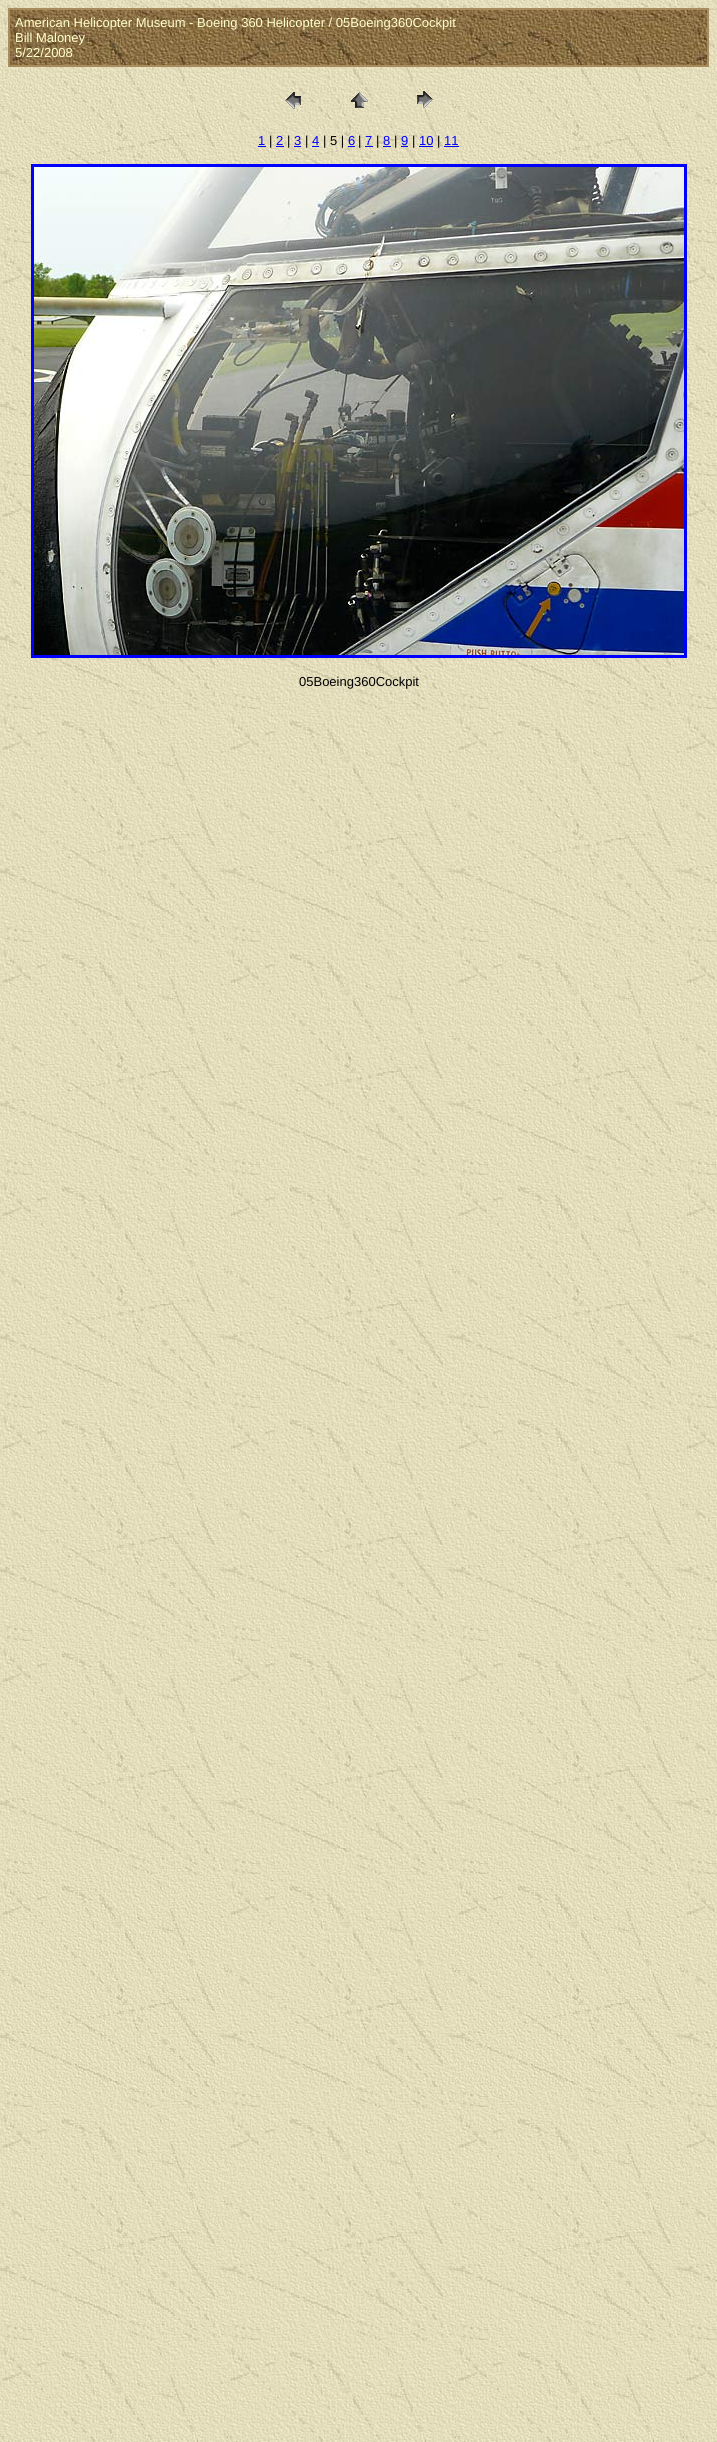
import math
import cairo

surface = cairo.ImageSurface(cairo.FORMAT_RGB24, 717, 2442)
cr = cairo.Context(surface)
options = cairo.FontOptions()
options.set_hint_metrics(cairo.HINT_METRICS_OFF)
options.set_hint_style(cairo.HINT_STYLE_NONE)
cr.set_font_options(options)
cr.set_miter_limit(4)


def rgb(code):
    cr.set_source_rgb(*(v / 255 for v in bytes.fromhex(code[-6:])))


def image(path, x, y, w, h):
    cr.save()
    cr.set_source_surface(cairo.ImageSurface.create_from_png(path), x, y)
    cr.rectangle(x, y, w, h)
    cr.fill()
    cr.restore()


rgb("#ffffff")
cr.paint()
image("img/1.png", 0, 0, 717, 2442)
rgb("#a98c5d")
cr.rectangle(8, 8, 701, 59)
cr.fill()
image("img/2.png", 10, 10, 697, 55)
image("img/3.png", 285, 92, 16, 17)
image("img/4.png", 351, 92, 17, 16)
image("img/5.png", 417, 91, 16, 17)
for x, y, w, h, color in [
    (258, 146, 8, 1, "#0000ff"),
    (276, 146, 8, 1, "#0000ff"),
    (294, 146, 7, 1, "#0000ff"),
    (312, 146, 7, 1, "#0000ff"),
    (348, 146, 7, 1, "#0000ff"),
    (365, 146, 8, 1, "#0000ff"),
    (383, 146, 8, 1, "#0000ff"),
    (401, 146, 7, 1, "#0000ff"),
    (419, 146, 14, 1, "#0000ff"),
    (444, 146, 15, 1, "#0000ff"),
]:
    rgb(color)
    cr.rectangle(x, y, w, h)
    cr.fill()
cr.rectangle(32.5, 165.5, 653, 491)
cr.set_line_width(3)
cr.stroke()
image("img/6.png", 34, 167, 650, 488)
cr.select_font_face("Liberation Sans")
cr.set_font_size(13)
rgb("#ffffcc")
for x, y, s in [
    (15, 27, "American Helicopter Museum - Boeing 360 Helicopter / 05Boeing360Cockpit"),
    (15, 42, "Bill Maloney"),
    (15, 57, "5/22/2008"),
]:
    cr.move_to(x, y)
    cr.show_text(s)
rgb("#0000ff")
cr.move_to(258, 145)
cr.show_text("1")
rgb("#000000")
cr.move_to(269, 145)
cr.show_text("|")
rgb("#0000ff")
cr.move_to(276, 145)
cr.show_text("2")
rgb("#000000")
cr.move_to(287, 145)
cr.show_text("|")
rgb("#0000ff")
cr.move_to(294, 145)
cr.show_text("3")
rgb("#000000")
cr.move_to(305, 145)
cr.show_text("|")
rgb("#0000ff")
cr.move_to(312, 145)
cr.show_text("4")
rgb("#000000")
cr.move_to(323, 145)
cr.show_text("| 5 |")
rgb("#0000ff")
cr.move_to(348, 145)
cr.show_text("6")
rgb("#000000")
cr.move_to(358, 145)
cr.show_text("|")
rgb("#0000ff")
cr.move_to(365, 145)
cr.show_text("7")
rgb("#000000")
cr.move_to(376, 145)
cr.show_text("|")
rgb("#0000ff")
cr.move_to(383, 145)
cr.show_text("8")
rgb("#000000")
cr.move_to(394, 145)
cr.show_text("|")
rgb("#0000ff")
cr.move_to(401, 145)
cr.show_text("9")
rgb("#000000")
cr.move_to(412, 145)
cr.show_text("|")
rgb("#0000ff")
cr.move_to(419, 145)
cr.show_text("10")
rgb("#000000")
cr.move_to(437, 145)
cr.show_text("|")
rgb("#0000ff")
cr.move_to(444, 145)
cr.show_text("11")
rgb("#000000")
cr.move_to(299, 686)
cr.show_text("05Boeing360Cockpit")
surface.write_to_png("page.png")
